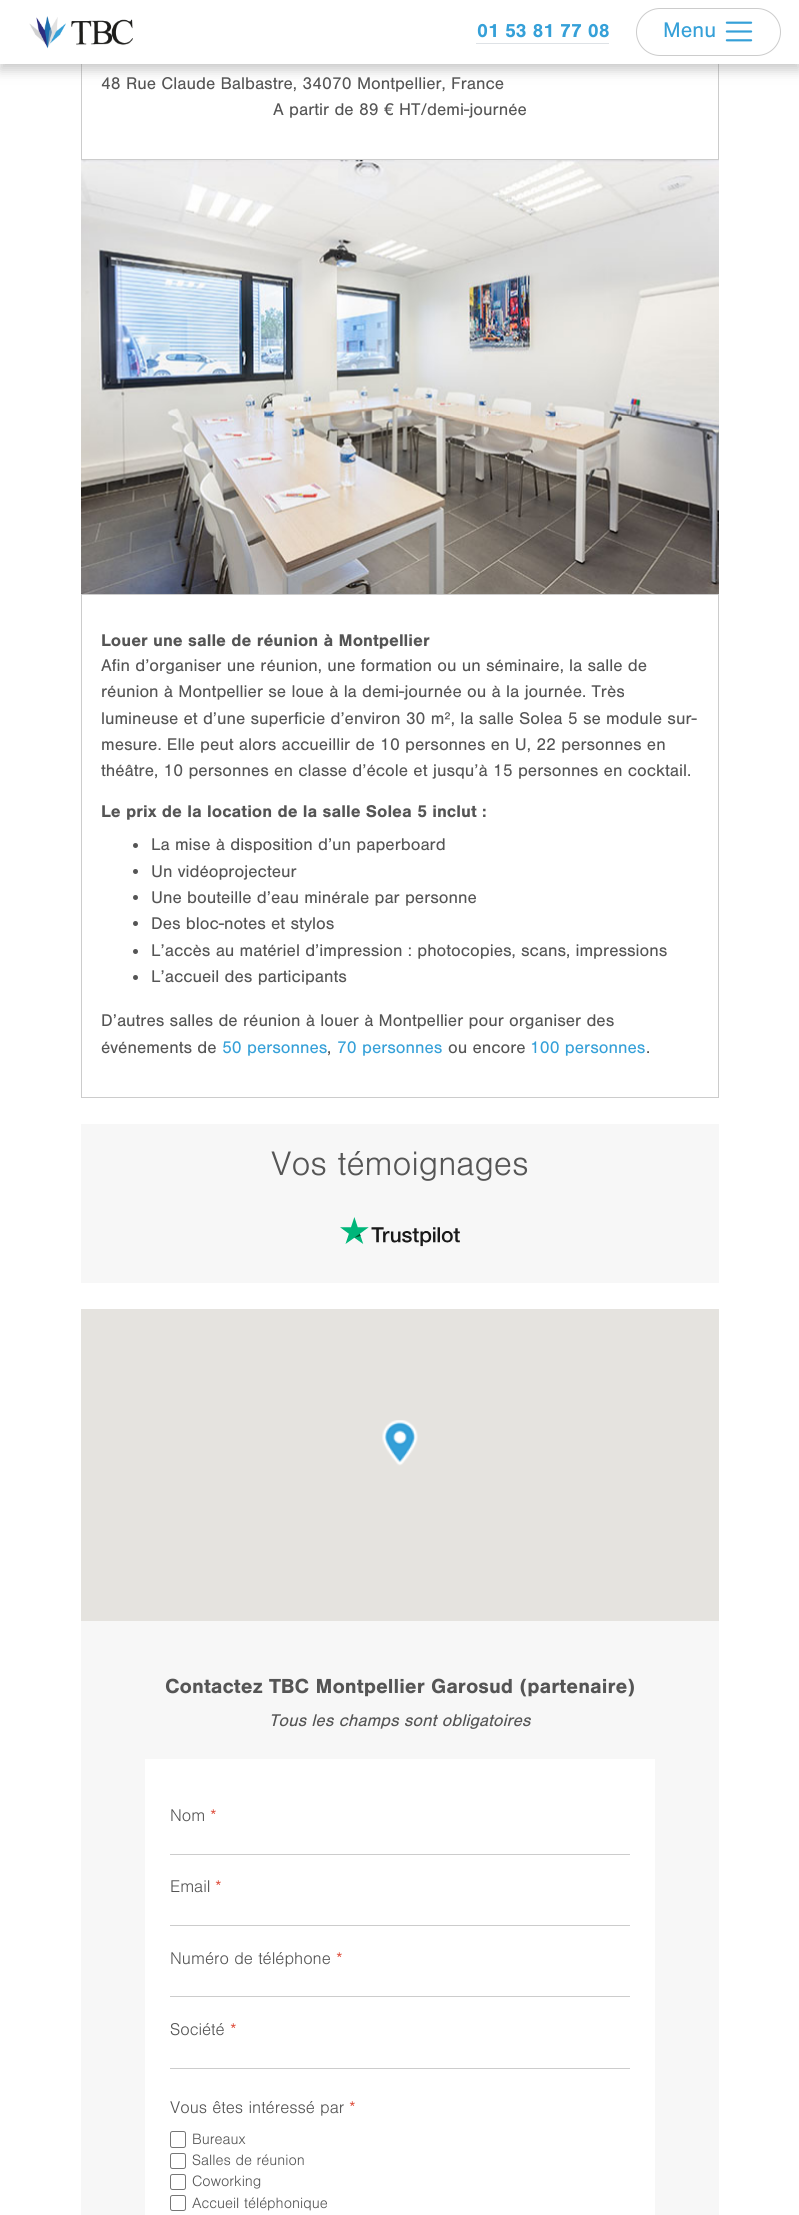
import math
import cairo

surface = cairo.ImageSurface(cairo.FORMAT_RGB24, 799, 2215)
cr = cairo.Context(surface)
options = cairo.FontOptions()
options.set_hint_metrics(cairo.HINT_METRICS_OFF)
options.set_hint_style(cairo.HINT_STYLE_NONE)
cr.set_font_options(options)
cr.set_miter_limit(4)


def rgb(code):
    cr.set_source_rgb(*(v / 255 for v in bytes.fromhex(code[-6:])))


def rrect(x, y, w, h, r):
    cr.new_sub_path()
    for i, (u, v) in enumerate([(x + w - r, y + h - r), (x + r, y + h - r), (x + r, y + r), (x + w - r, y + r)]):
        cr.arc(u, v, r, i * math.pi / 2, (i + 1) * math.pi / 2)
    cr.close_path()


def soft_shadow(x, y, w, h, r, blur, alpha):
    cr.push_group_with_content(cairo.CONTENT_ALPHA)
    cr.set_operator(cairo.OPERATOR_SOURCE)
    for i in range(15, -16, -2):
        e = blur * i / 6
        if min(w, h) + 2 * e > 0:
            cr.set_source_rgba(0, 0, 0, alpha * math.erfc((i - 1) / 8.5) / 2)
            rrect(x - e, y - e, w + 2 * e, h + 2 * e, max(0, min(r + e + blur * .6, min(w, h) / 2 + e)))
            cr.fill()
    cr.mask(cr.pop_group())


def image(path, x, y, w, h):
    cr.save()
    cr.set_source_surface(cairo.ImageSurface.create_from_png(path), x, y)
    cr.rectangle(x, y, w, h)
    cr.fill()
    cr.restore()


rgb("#ffffff")
cr.paint()
cr.rectangle(81.5, -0.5, 637, 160)
rgb("#cccccc")
cr.set_line_width(1)
cr.stroke()
rgb("#7a7a7a")
soft_shadow(0, 6, 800, 64, 0, 6, 0.4)
rgb("#ffffff")
cr.rectangle(0, 0, 799, 64)
cr.fill()
image("img/1.png", 29, 16, 104, 33)
rgb("#dee2e6")
cr.rectangle(476, 43, 133, 1)
cr.fill()
rrect(636.5, 8.5, 144, 47, 23.5)
rgb("#cccccc")
cr.stroke()
image("img/2.png", 725, 21, 28, 21)
image("img/3.png", 81, 160, 638, 434)
cr.rectangle(81.5, 594.5, 637, 503)
cr.stroke()
rgb("#555555")
cr.arc(135.5, 845.5, 2.5, 0, 2 * math.pi)
cr.fill()
cr.arc(135.5, 871.5, 2.5, 0, 2 * math.pi)
cr.fill()
cr.arc(135.5, 897.5, 2.5, 0, 2 * math.pi)
cr.fill()
cr.arc(135.5, 923.5, 2.5, 0, 2 * math.pi)
cr.fill()
cr.arc(135.5, 951.5, 2.5, 0, 2 * math.pi)
cr.fill()
cr.arc(135.5, 977.5, 2.5, 0, 2 * math.pi)
cr.fill()
rgb("#f7f7f7")
cr.rectangle(81, 1124, 638, 159)
cr.fill()
image("img/4.png", 340, 1217, 120, 30)
cr.rectangle(81, 1621, 638, 594)
cr.fill()
rgb("#e5e3df")
cr.rectangle(81, 1309, 638, 312)
cr.fill()
image("img/5.png", 382, 1420, 36, 46)
for x, y, w, h, color in [
    (145, 1759, 510, 456, "#ffffff"),
    (170, 1854, 460, 1, "#cccccc"),
    (170, 1925, 460, 1, "#cccccc"),
    (170, 1996, 460, 1, "#cccccc"),
    (170, 2068, 460, 1, "#cccccc"),
]:
    rgb(color)
    cr.rectangle(x, y, w, h)
    cr.fill()
rrect(170.5, 2131.5, 15, 16, 2)
rgb("#767676")
cr.stroke()
rrect(170.5, 2153.5, 15, 15, 2)
cr.stroke()
rrect(170.5, 2174.5, 15, 15, 2)
cr.stroke()
rrect(170.5, 2195.5, 15, 15, 2)
cr.stroke()
cr.select_font_face("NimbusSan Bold", cairo.FONT_SLANT_NORMAL, cairo.FONT_WEIGHT_BOLD)
cr.set_font_size(19.5)
rgb("#35a0d8")
cr.move_to(477, 37)
cr.show_text("01 53 81 77 08")
cr.select_font_face("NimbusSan")
cr.set_font_size(22)
cr.move_to(663, 37)
cr.show_text("Menu")
cr.set_font_size(17.6)
rgb("#555555")
cr.move_to(101, 89)
cr.show_text("48 Rue Claude Balbastre, 34070 Montpellier, France")
cr.move_to(273, 115)
cr.show_text("A partir de 89 € HT/demi-journée")
cr.select_font_face("NimbusSan Bold", cairo.FONT_SLANT_NORMAL, cairo.FONT_WEIGHT_BOLD)
cr.move_to(101, 646)
cr.show_text("Louer une salle de réunion à Montpellier")
cr.select_font_face("NimbusSan")
for x, y, s in [
    (101, 671, "Afin d’organiser une réunion, une formation ou un séminaire, la salle de"),
    (101, 697, "réunion à Montpellier se loue à la demi-journée ou à la journée. Très"),
    (101, 724, "lumineuse et d’une superficie d’environ 30 m², la salle Solea 5 se module sur-"),
    (101, 750, "mesure. Elle peut alors accueillir de 10 personnes en U, 22 personnes en"),
    (101, 776, "théâtre, 10 personnes en classe d’école et jusqu’à 15 personnes en cocktail."),
]:
    cr.move_to(x, y)
    cr.show_text(s)
cr.select_font_face("NimbusSan Bold", cairo.FONT_SLANT_NORMAL, cairo.FONT_WEIGHT_BOLD)
cr.move_to(101, 817)
cr.show_text("Le prix de la location de la salle Solea 5 inclut :")
cr.select_font_face("NimbusSan")
for x, y, s in [
    (151, 850, "La mise à disposition d’un paperboard"),
    (151, 877, "Un vidéoprojecteur"),
    (151, 903, "Une bouteille d’eau minérale par personne"),
    (151, 929, "Des bloc-notes et stylos"),
    (151, 956, "L’accès au matériel d’impression : photocopies, scans, impressions"),
    (151, 982, "L’accueil des participants"),
    (101, 1026, "D’autres salles de réunion à louer à Montpellier pour organiser des"),
    (101, 1053, "événements de"),
]:
    cr.move_to(x, y)
    cr.show_text(s)
rgb("#35a0d8")
cr.move_to(222, 1053)
cr.show_text("50 personnes")
rgb("#555555")
cr.move_to(327, 1053)
cr.show_text(",")
rgb("#35a0d8")
cr.move_to(337, 1053)
cr.show_text("70 personnes")
rgb("#555555")
cr.move_to(448, 1053)
cr.show_text("ou encore")
rgb("#35a0d8")
cr.move_to(530, 1053)
cr.show_text("100 personnes")
rgb("#555555")
cr.move_to(646, 1053)
cr.show_text(".")
cr.select_font_face("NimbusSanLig")
cr.set_font_size(35.25)
cr.move_to(271, 1175)
cr.show_text("Vos témoignages")
cr.select_font_face("NimbusSan Bold", cairo.FONT_SLANT_NORMAL, cairo.FONT_WEIGHT_BOLD)
cr.set_font_size(21.1)
cr.move_to(165, 1693)
cr.show_text("Contactez TBC Montpellier Garosud (partenaire)")
cr.select_font_face("NimbusSan", cairo.FONT_SLANT_ITALIC)
cr.set_font_size(17.6)
cr.move_to(269, 1726)
cr.show_text("Tous les champs sont obligatoires")
cr.select_font_face("NimbusSanLig")
cr.move_to(170, 1821)
cr.show_text("Nom")
rgb("#dd4b39")
cr.move_to(210, 1821)
cr.show_text("*")
rgb("#555555")
cr.move_to(170, 1892)
cr.show_text("Email")
rgb("#dd4b39")
cr.move_to(215, 1892)
cr.show_text("*")
rgb("#555555")
cr.move_to(170, 1964)
cr.show_text("Numéro de téléphone")
rgb("#dd4b39")
cr.move_to(336, 1964)
cr.show_text("*")
rgb("#555555")
cr.move_to(170, 2035)
cr.show_text("Société")
rgb("#dd4b39")
cr.move_to(230, 2035)
cr.show_text("*")
rgb("#555555")
cr.move_to(170, 2113)
cr.show_text("Vous êtes intéressé par")
rgb("#dd4b39")
cr.move_to(349, 2113)
cr.show_text("*")
cr.set_font_size(15.5)
rgb("#555555")
for x, y, s in [
    (192, 2144, "Bureaux"),
    (192, 2165, "Salles de réunion"),
    (192, 2186, "Coworking"),
    (192, 2208, "Accueil téléphonique"),
]:
    cr.move_to(x, y)
    cr.show_text(s)
surface.write_to_png("page.png")
